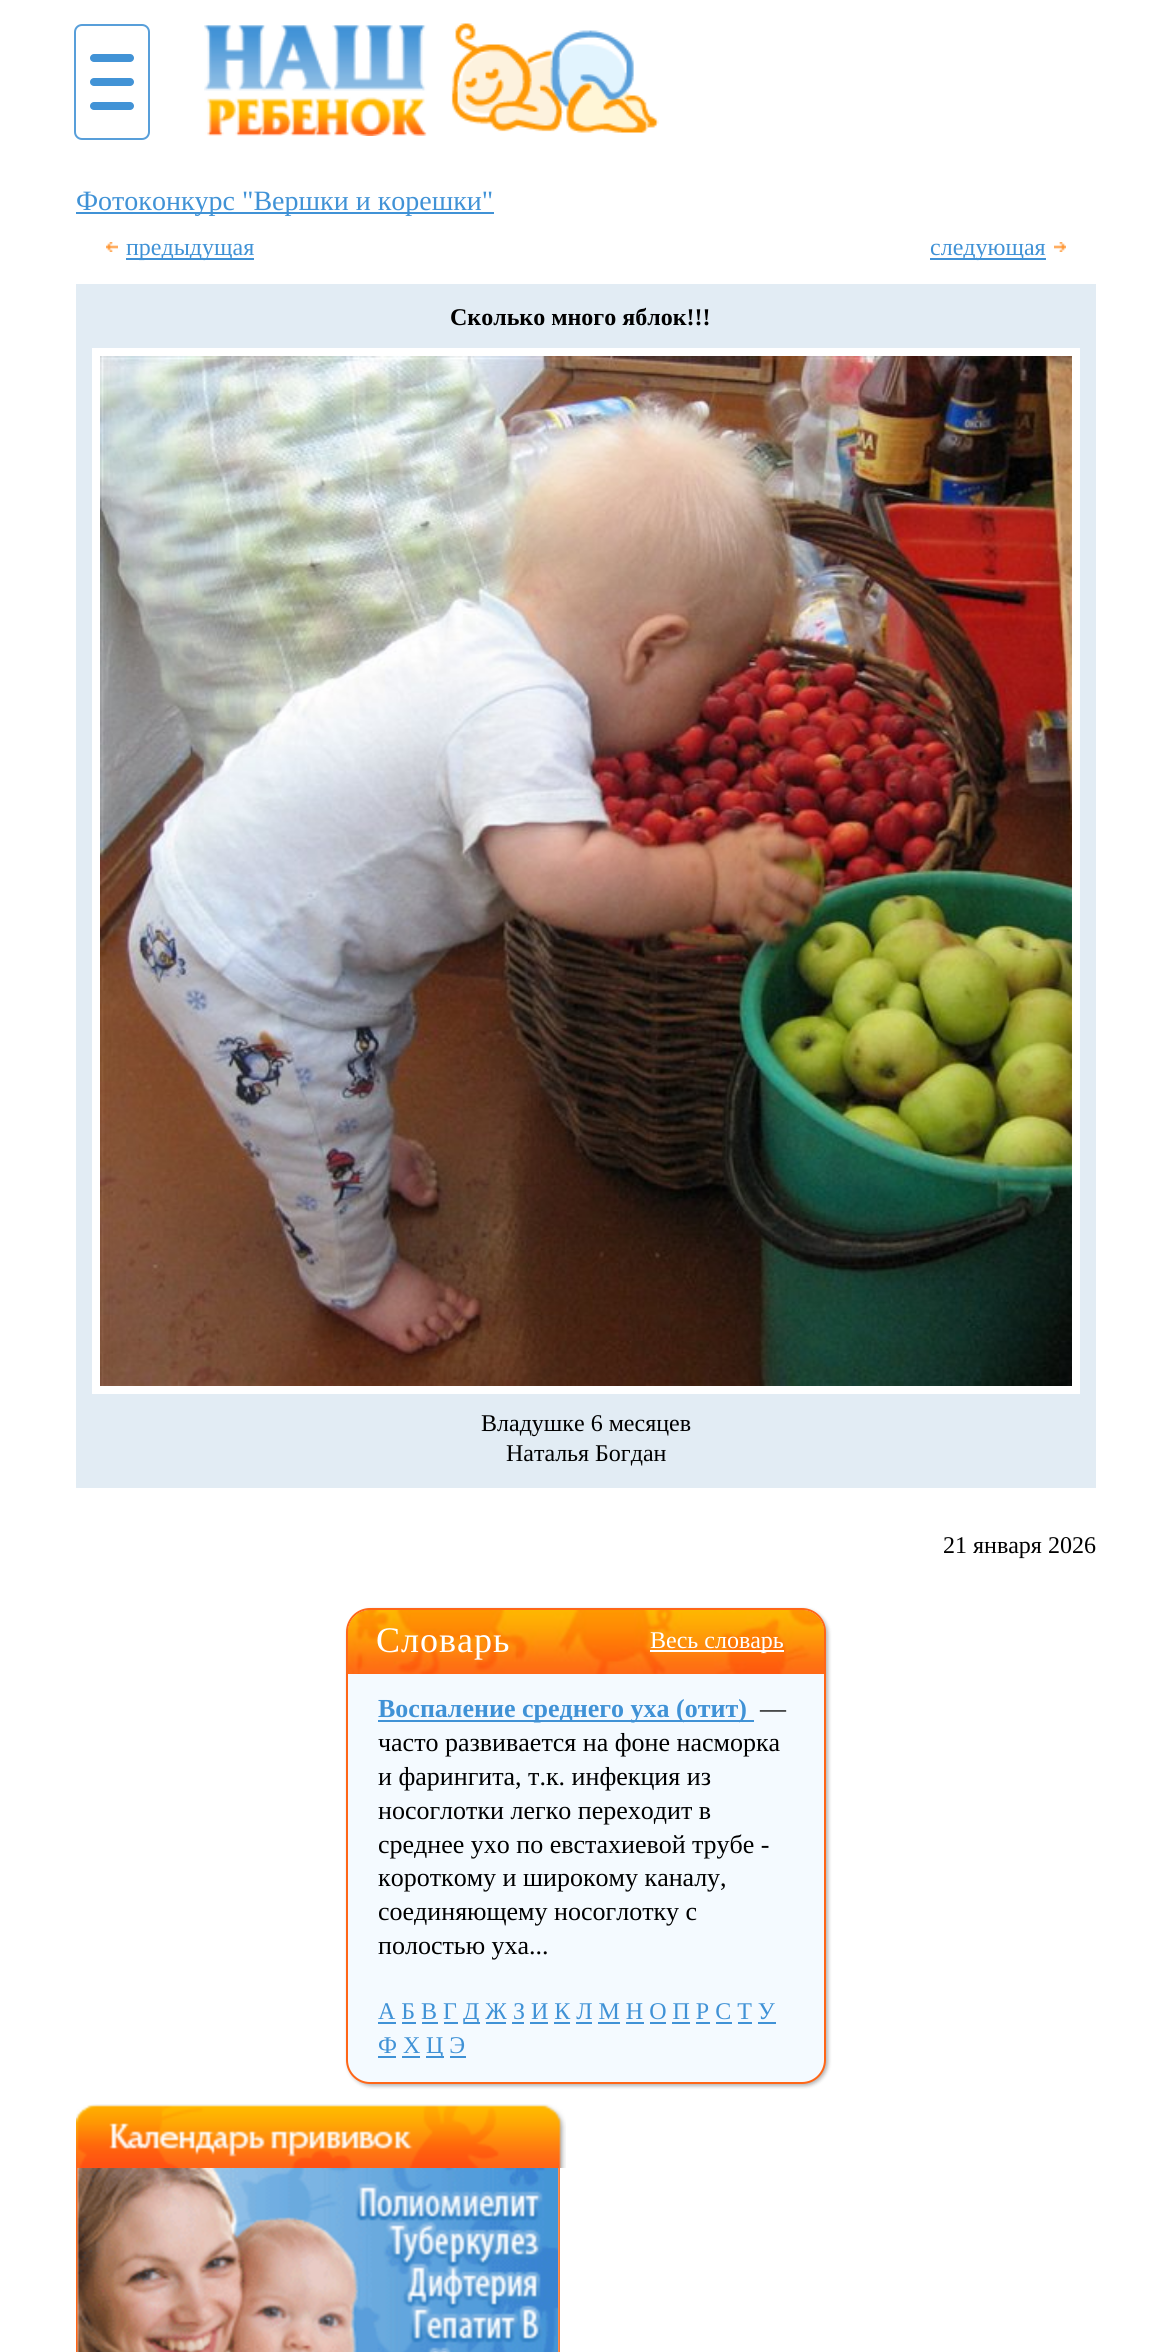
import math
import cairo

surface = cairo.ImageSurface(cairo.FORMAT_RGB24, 1171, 2352)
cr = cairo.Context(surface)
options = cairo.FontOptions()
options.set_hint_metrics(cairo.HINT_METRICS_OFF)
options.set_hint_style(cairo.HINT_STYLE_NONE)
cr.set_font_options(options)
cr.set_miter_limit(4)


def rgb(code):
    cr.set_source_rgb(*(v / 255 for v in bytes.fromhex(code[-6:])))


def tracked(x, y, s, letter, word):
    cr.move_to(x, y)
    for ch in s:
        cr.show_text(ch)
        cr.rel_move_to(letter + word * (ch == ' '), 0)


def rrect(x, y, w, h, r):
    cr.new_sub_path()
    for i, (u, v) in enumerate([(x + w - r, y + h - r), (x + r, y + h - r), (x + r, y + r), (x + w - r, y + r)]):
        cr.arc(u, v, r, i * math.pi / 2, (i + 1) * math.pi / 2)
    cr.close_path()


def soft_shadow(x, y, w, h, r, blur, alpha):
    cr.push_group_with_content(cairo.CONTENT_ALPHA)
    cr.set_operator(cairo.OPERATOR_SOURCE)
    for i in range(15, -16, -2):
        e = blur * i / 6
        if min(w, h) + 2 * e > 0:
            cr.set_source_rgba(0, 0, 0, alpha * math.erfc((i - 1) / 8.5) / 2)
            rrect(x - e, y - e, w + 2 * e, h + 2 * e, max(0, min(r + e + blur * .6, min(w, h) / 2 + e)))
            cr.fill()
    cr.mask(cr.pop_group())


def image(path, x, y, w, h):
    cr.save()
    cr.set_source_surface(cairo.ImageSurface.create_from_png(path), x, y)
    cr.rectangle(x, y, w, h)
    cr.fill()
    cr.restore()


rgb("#ffffff")
cr.paint()
rrect(75, 25, 74, 114, 7)
rgb("#589fda")
cr.stroke()
rgb("#4293d6")
rrect(90, 54, 44, 8, 4)
cr.fill()
rrect(90, 78, 44, 8, 4)
cr.fill()
rrect(90, 102, 44, 8, 4)
cr.fill()
image("img/1.png", 204, 23, 455, 113)
rgb("#4092d6")
cr.rectangle(76, 212, 418, 2)
cr.fill()
image("img/2.png", 106, 242, 12, 10)
cr.rectangle(126, 258, 128, 2)
cr.fill()
image("img/3.png", 1054, 242, 12, 10)
cr.rectangle(930, 258, 116, 2)
cr.fill()
rgb("#e2ecf4")
cr.rectangle(76, 284, 1020, 1204)
cr.fill()
cr.rectangle(96, 352, 980, 1038)
rgb("#ffffff")
cr.set_line_width(8)
cr.stroke()
image("img/4.png", 100, 356, 972, 1030)
rgb("#000000")
soft_shadow(348, 1610, 480, 476, 24, 2, 0.3)
rgb("#f4faff")
rrect(347, 1609, 478, 474, 23)
cr.fill_preserve()
rgb("#ff6617")
cr.set_line_width(2)
cr.stroke()
cr.new_path()
cr.move_to(370, 1610)
cr.line_to(802, 1610)
cr.curve_to(814, 1610, 824, 1620, 824, 1632)
cr.line_to(824, 1674)
cr.line_to(348, 1674)
cr.line_to(348, 1632)
cr.curve_to(348, 1620, 358, 1610, 370, 1610)
cr.close_path()
cr.fill()
image("img/5.png", 348, 1610, 476, 64)
for x, y, w, h, color in [
    (650, 1650, 134, 2, "#ffffff"),
    (378, 1720, 376, 2, "#4092d6"),
    (378, 2022, 18, 2, "#4092d6"),
    (464, 2022, 16, 2, "#4092d6"),
    (402, 2022, 14, 2, "#4092d6"),
    (422, 2022, 16, 2, "#4092d6"),
    (444, 2022, 14, 2, "#4092d6"),
    (486, 2022, 20, 2, "#4092d6"),
    (512, 2022, 12, 2, "#4092d6"),
    (530, 2022, 18, 2, "#4092d6"),
    (554, 2022, 16, 2, "#4092d6"),
    (576, 2022, 16, 2, "#4092d6"),
    (598, 2022, 22, 2, "#4092d6"),
    (626, 2022, 18, 2, "#4092d6"),
    (650, 2022, 16, 2, "#4092d6"),
    (672, 2022, 18, 2, "#4092d6"),
    (696, 2022, 14, 2, "#4092d6"),
    (716, 2022, 16, 2, "#4092d6"),
    (738, 2022, 14, 2, "#4092d6"),
    (758, 2022, 18, 2, "#4092d6"),
    (378, 2056, 18, 2, "#4092d6"),
    (426, 2056, 18, 2, "#4092d6"),
    (402, 2056, 18, 2, "#4092d6"),
    (450, 2056, 16, 2, "#4092d6"),
]:
    rgb(color)
    cr.rectangle(x, y, w, h)
    cr.fill()
image("img/6.png", 76, 2168, 484, 184)
image("img/7.png", 76, 2104, 490, 64)
image("img/8.png", 77, 2168, 481, 184)
cr.select_font_face("Liberation Serif")
cr.set_font_size(28)
cr.move_to(76, 210)
cr.show_text("Фотоконкурс \"Вершки и корешки\"")
cr.set_font_size(24)
cr.move_to(126, 255)
cr.show_text("предыдущая")
cr.move_to(930, 255)
cr.show_text("следующая")
cr.select_font_face("Liberation Serif", cairo.FONT_SLANT_NORMAL, cairo.FONT_WEIGHT_BOLD)
rgb("#000000")
cr.move_to(450, 325)
cr.show_text("Сколько много яблок!!!")
cr.select_font_face("Liberation Serif")
for x, y, s in [
    (481, 1431, "Владушке 6 месяцев"),
    (506, 1461, "Наталья Богдан"),
    (943, 1553, "21 января 2026"),
]:
    cr.move_to(x, y)
    cr.show_text(s)
cr.set_font_size(36)
rgb("#ffffff")
tracked(376, 1652, "Словарь", 1, 0)
cr.set_font_size(24)
cr.move_to(650, 1648)
cr.show_text("Весь словарь")
cr.select_font_face("Liberation Serif", cairo.FONT_SLANT_NORMAL, cairo.FONT_WEIGHT_BOLD)
cr.set_font_size(26)
rgb("#4092d6")
cr.move_to(378, 1717)
cr.show_text("Воспаление среднего уха (отит)")
cr.select_font_face("Liberation Serif")
rgb("#000000")
for x, y, s in [
    (760, 1717, "—"),
    (378, 1751, "часто развивается на фоне насморка"),
    (378, 1785, "и фарингита, т.к. инфекция из"),
    (378, 1819, "носоглотки легко переходит в"),
    (378, 1853, "среднее ухо по евстахиевой трубе -"),
    (378, 1886, "короткому и широкому каналу,"),
    (378, 1920, "соединяющему носоглотку с"),
    (378, 1954, "полостью уха..."),
]:
    cr.move_to(x, y)
    cr.show_text(s)
cr.set_font_size(24)
rgb("#4092d6")
for x, y, s in [
    (378, 2019, "А Б В Г"),
    (463, 2019, "Д Ж З И К Л М Н О П Р С Т У"),
    (378, 2053, "Ф Х"),
    (426, 2053, "Ц Э"),
]:
    cr.move_to(x, y)
    cr.show_text(s)
surface.write_to_png("page.png")
